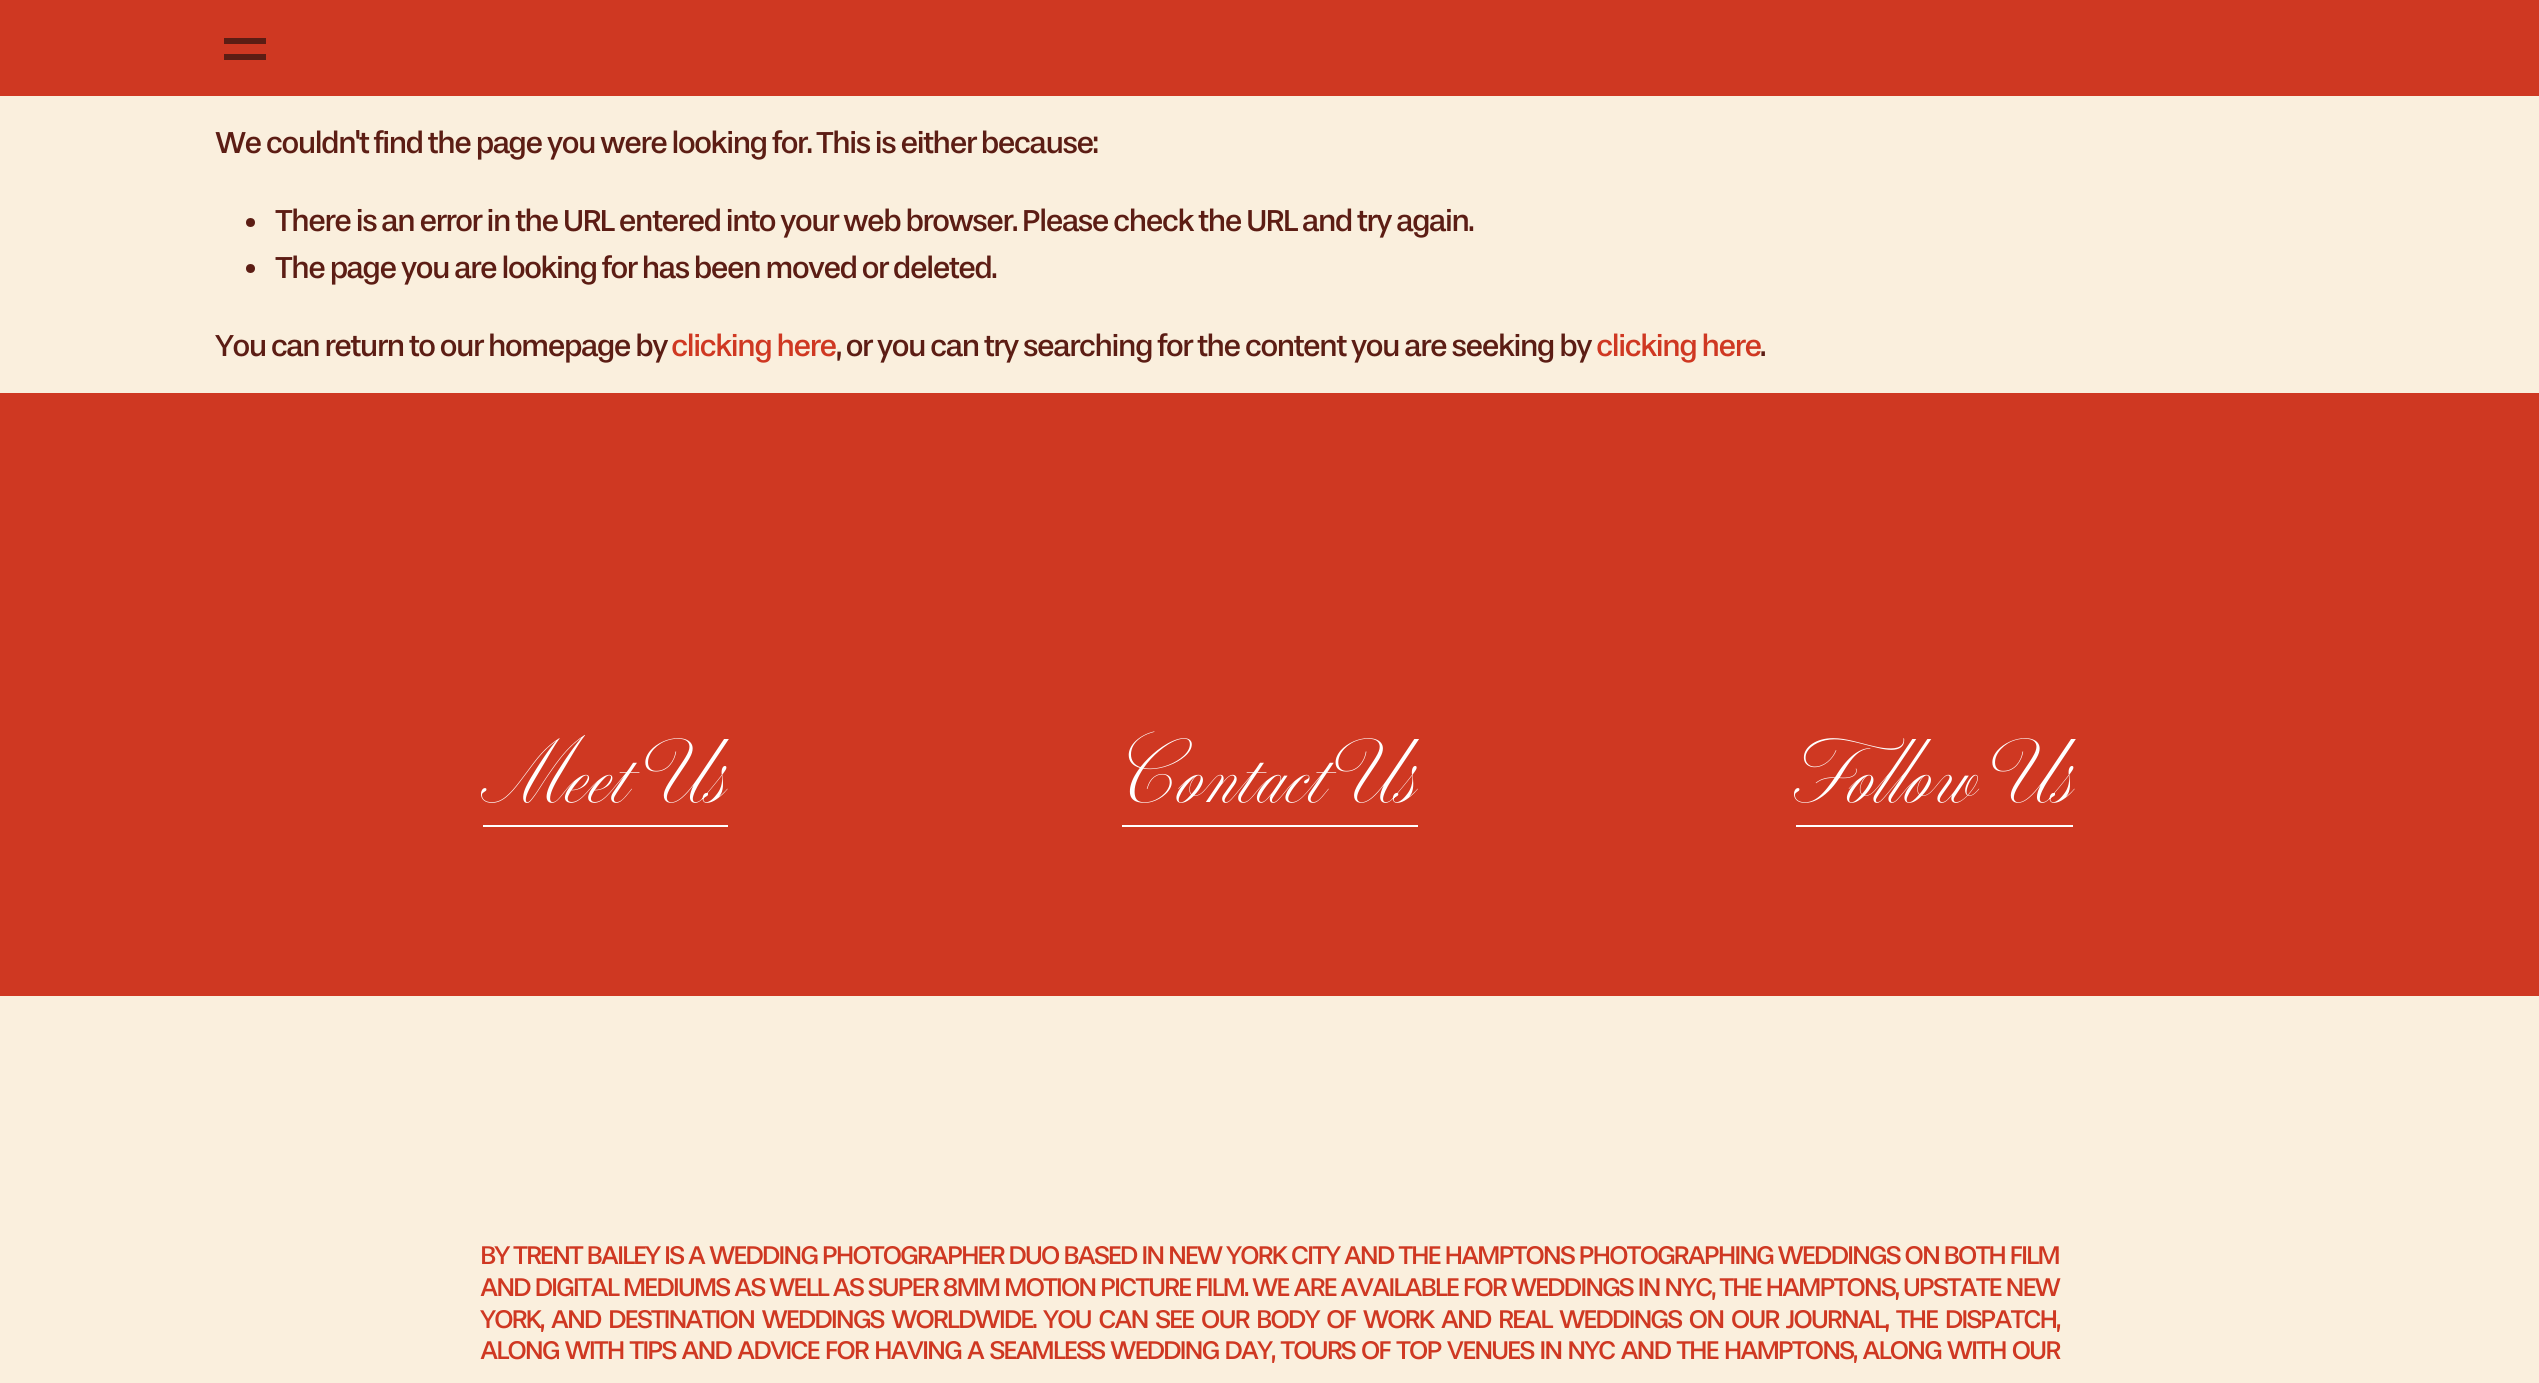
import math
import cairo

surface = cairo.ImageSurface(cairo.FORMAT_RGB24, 2539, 1383)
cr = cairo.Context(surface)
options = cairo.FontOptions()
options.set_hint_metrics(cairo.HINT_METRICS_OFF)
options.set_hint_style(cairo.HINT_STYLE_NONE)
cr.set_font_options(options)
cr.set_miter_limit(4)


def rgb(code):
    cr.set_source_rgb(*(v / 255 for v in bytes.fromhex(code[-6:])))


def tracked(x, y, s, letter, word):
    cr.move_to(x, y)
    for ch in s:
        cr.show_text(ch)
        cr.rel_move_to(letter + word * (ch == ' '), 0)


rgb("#faefdd")
cr.paint()
for x, y, w, h, color in [
    (0, 0, 2539, 96, "#cf3822"),
    (224, 38, 42, 6, "#5c1d14"),
    (224, 54, 42, 6, "#5c1d14"),
]:
    rgb(color)
    cr.rectangle(x, y, w, h)
    cr.fill()
cr.arc(250.5, 222.5, 4.5, 0, 2 * math.pi)
cr.fill()
cr.arc(250.5, 268.5, 4.5, 0, 2 * math.pi)
cr.fill()
for x, y, w, h, color in [
    (0, 393, 2539, 603, "#cf3822"),
    (483, 825, 245, 2, "#ffffff"),
    (1122, 825, 296, 2, "#ffffff"),
    (1796, 825, 277, 2, "#ffffff"),
]:
    rgb(color)
    cr.rectangle(x, y, w, h)
    cr.fill()
cr.select_font_face("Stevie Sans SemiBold")
cr.set_font_size(31.2)
rgb("#5c1d14")
for x, y, s in [
    (215, 153, "We couldn't find the page you were looking for. This is either because:"),
    (275, 231, "There is an error in the URL entered into your web browser. Please check the URL and try again."),
    (275, 278, "The page you are looking for has been moved or deleted."),
    (215, 356, "You can return to our homepage by"),
]:
    tracked(x, y, s, -1.87, 0)
rgb("#cf3822")
tracked(671, 356, "clicking here", -1.87, 0)
rgb("#5c1d14")
tracked(836, 356, ", or you can try searching for the content you are seeking by", -1.87, 0)
rgb("#cf3822")
tracked(1596, 356, "clicking here", -1.87, 0)
rgb("#5c1d14")
tracked(1760, 356, ".", -1.87, 0)
cr.select_font_face("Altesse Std")
cr.set_font_size(84)
rgb("#ffffff")
for x, y, s in [
    (483, 802, "Meet Us"),
    (1122, 802, "Contact"),
    (1344, 802, "Us"),
    (1796, 802, "Follow Us"),
]:
    cr.move_to(x, y)
    cr.show_text(s)
cr.select_font_face("Stevie Sans SemiBold")
cr.set_font_size(26.4)
rgb("#cf3822")
tracked(480, 1264, "BY TRENT BAILEY IS A WEDDING PHOTOGRAPHER DUO BASED IN NEW YORK CITY AND THE HAMPTONS PHOTOGRAPHING WEDDINGS ON BOTH FILM", -2.16, 1.1)
tracked(480, 1296, "AND DIGITAL MEDIUMS AS WELL AS SUPER 8MM MOTION PICTURE FILM. WE ARE AVAILABLE FOR WEDDINGS IN NYC, THE HAMPTONS, UPSTATE NEW", -2.16, 1.1)
tracked(480, 1328, "YORK, AND DESTINATION WEDDINGS WORLDWIDE.", -2.16, 3.9)
tracked(1043, 1328, "YOU CAN SEE OUR BODY OF WORK AND REAL WEDDINGS ON OUR JOURNAL, THE DISPATCH,", -2.16, 3.9)
tracked(480, 1359, "ALONG WITH TIPS AND ADVICE FOR HAVING A SEAMLESS WEDDING DAY, TOURS OF TOP VENUES IN NYC AND THE HAMPTONS, ALONG WITH OUR", -2.16, 2.4)
surface.write_to_png("page.png")
